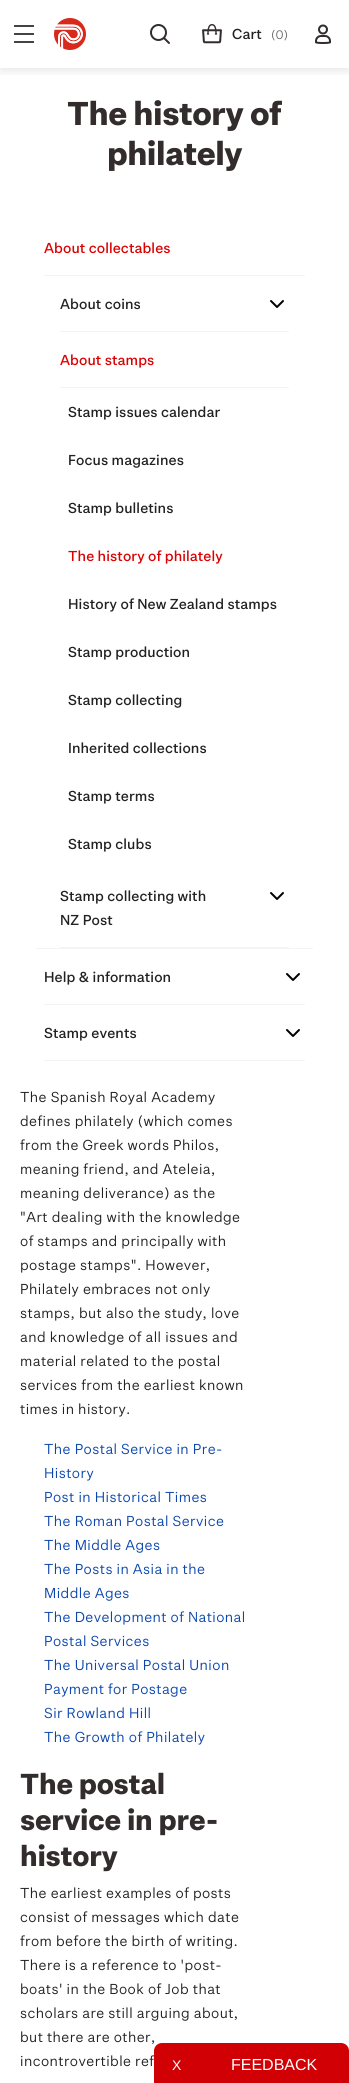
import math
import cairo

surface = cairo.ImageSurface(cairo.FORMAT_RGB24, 349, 2083)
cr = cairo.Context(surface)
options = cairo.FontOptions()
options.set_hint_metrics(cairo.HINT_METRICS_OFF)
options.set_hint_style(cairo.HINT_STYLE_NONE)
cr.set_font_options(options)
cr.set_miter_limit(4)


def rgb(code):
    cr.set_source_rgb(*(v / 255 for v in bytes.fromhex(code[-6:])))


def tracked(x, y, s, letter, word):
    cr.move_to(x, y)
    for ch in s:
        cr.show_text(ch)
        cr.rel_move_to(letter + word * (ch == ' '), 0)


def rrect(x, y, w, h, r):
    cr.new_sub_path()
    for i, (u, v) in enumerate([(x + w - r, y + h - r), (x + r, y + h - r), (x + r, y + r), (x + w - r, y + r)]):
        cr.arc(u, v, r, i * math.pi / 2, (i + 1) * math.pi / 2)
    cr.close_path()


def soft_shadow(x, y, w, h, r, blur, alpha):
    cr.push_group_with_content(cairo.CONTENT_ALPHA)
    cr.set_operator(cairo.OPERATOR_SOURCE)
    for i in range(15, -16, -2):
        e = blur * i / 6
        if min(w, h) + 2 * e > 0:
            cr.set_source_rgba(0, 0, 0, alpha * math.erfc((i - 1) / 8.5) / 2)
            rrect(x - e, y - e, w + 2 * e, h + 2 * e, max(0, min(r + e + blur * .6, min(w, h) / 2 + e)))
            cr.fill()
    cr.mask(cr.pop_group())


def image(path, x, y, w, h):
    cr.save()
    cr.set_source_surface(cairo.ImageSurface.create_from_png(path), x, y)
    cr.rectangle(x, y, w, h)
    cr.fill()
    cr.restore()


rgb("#ffffff")
cr.paint()
cr.save()
cr.rectangle(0, 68, 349, 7)
cr.clip()
rgb("#303133")
soft_shadow(0, 4, 349, 68, 0, 4, 0.1)
cr.restore()
for x, y, w, h, color in [
    (14, 33, 20, 2, "#444444"),
    (14, 25, 20, 2, "#444444"),
    (14, 41, 20, 2, "#444444"),
]:
    rgb(color)
    cr.rectangle(x, y, w, h)
    cr.fill()
image("img/1.png", 54, 18, 32, 32)
image("img/2.png", 150, 24, 20, 20)
image("img/3.png", 202, 24, 20, 20)
image("img/4.png", 315, 24, 16, 20)
rgb("#f4f4f4")
cr.rectangle(44, 275, 261, 1)
cr.fill()
cr.rectangle(36, 948, 277, 1)
cr.fill()
image("img/5.png", 270, 300, 14, 8)
cr.rectangle(60, 331, 229, 1)
cr.fill()
cr.rectangle(60, 387, 229, 1)
cr.fill()
image("img/5.png", 270, 892, 14, 8)
cr.rectangle(60, 947, 229, 1)
cr.fill()
image("img/5.png", 286, 973, 14, 8)
cr.rectangle(44, 1004, 261, 1)
cr.fill()
image("img/5.png", 286, 1029, 14, 8)
cr.rectangle(44, 1060, 261, 1)
cr.fill()
rgb("#d10005")
cr.new_path()
cr.move_to(162, 2043)
cr.line_to(199, 2043)
cr.line_to(199, 2083)
cr.line_to(154, 2083)
cr.line_to(154, 2051)
cr.curve_to(154, 2046.5, 157.5, 2043, 162, 2043)
cr.close_path()
cr.fill()
cr.new_path()
cr.move_to(199, 2043)
cr.line_to(341, 2043)
cr.curve_to(345.5, 2043, 349, 2046.5, 349, 2051)
cr.line_to(349, 2083)
cr.line_to(199, 2083)
cr.close_path()
cr.fill()
cr.select_font_face("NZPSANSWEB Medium")
cr.set_font_size(14)
rgb("#212121")
tracked(232, 39, "Cart", 0.1, 0)
cr.select_font_face("NZPSANSWEB")
cr.set_font_size(12)
rgb("#6f6f6f")
cr.move_to(271, 39)
cr.show_text("(0)")
cr.select_font_face("NZPSANSWEB", cairo.FONT_SLANT_NORMAL, cairo.FONT_WEIGHT_BOLD)
cr.set_font_size(32)
rgb("#332c2c")
tracked(67, 125, "The history of", -0.5, 0)
tracked(107, 165, "philately", -0.5, 0)
cr.select_font_face("NZPSANSWEB Medium")
cr.set_font_size(14)
rgb("#dc0000")
tracked(44, 253, "About collectables", 0.1, 0)
rgb("#212121")
tracked(60, 309, "About coins", 0.1, 0)
rgb("#dc0000")
tracked(60, 365, "About stamps", 0.1, 0)
rgb("#212121")
for x, y, s in [
    (68, 417, "Stamp issues calendar"),
    (68, 465, "Focus magazines"),
    (68, 513, "Stamp bulletins"),
]:
    tracked(x, y, s, 0.1, 0)
rgb("#dc0000")
tracked(68, 561, "The history of philately", 0.1, 0)
rgb("#212121")
for x, y, s in [
    (68, 609, "History of New Zealand stamps"),
    (68, 657, "Stamp production"),
    (68, 705, "Stamp collecting"),
    (68, 753, "Inherited collections"),
    (68, 801, "Stamp terms"),
    (68, 849, "Stamp clubs"),
    (60, 901, "Stamp collecting with"),
    (60, 925, "NZ Post"),
    (44, 982, "Help & information"),
    (44, 1038, "Stamp events"),
]:
    tracked(x, y, s, 0.1, 0)
cr.select_font_face("NZPSANSWEB")
for x, y, s in [
    (20, 1102, "The Spanish Royal Academy"),
    (20, 1126, "defines philately (which comes"),
    (20, 1150, "from the Greek words Philos,"),
    (20, 1174, "meaning friend, and Ateleia,"),
    (20, 1198, "meaning deliverance) as the"),
    (20, 1222, "\"Art dealing with the knowledge"),
    (20, 1246, "of stamps and principally with"),
    (20, 1270, "postage stamps\". However,"),
    (20, 1294, "Philately embraces not only"),
    (20, 1318, "stamps, but also the study, love"),
    (20, 1342, "and knowledge of all issues and"),
    (20, 1366, "material related to the postal"),
    (20, 1390, "services from the earliest known"),
    (20, 1414, "times in history."),
]:
    tracked(x, y, s, 0.45, 0)
rgb("#0b46ae")
for x, y, s in [
    (44, 1454, "The Postal Service in Pre-"),
    (44, 1478, "History"),
    (44, 1502, "Post in Historical Times"),
    (44, 1526, "The Roman Postal Service"),
    (44, 1550, "The Middle Ages"),
    (44, 1574, "The Posts in Asia in the"),
    (44, 1598, "Middle Ages"),
    (44, 1622, "The Development of National"),
    (44, 1646, "Postal Services"),
    (44, 1670, "The Universal Postal Union"),
    (44, 1694, "Payment for Postage"),
    (44, 1718, "Sir Rowland Hill"),
    (44, 1742, "The Growth of Philately"),
]:
    tracked(x, y, s, 0.45, 0)
cr.select_font_face("NZPSANSWEB", cairo.FONT_SLANT_NORMAL, cairo.FONT_WEIGHT_BOLD)
cr.set_font_size(28)
rgb("#332c2c")
for x, y, s in [
    (20, 1794, "The postal"),
    (20, 1830, "service in pre-"),
    (20, 1866, "history"),
]:
    tracked(x, y, s, -0.25, 0)
cr.select_font_face("NZPSANSWEB")
cr.set_font_size(14)
rgb("#212121")
for x, y, s in [
    (20, 1898, "The earliest examples of posts"),
    (20, 1922, "consist of messages which date"),
    (20, 1946, "from before the birth of writing."),
    (20, 1970, "There is a reference to 'post-"),
    (20, 1994, "boats' in the Book of Job that"),
    (20, 2018, "scholars are still arguing about,"),
    (20, 2042, "but there are other,"),
    (20, 2066, "incontrovertible ref"),
]:
    tracked(x, y, s, 0.45, 0)
cr.select_font_face("Liberation Sans")
rgb("#ffffff")
cr.move_to(172, 2070)
cr.show_text("X")
cr.set_font_size(16)
cr.move_to(231, 2070)
cr.show_text("FEEDBACK")
surface.write_to_png("page.png")
